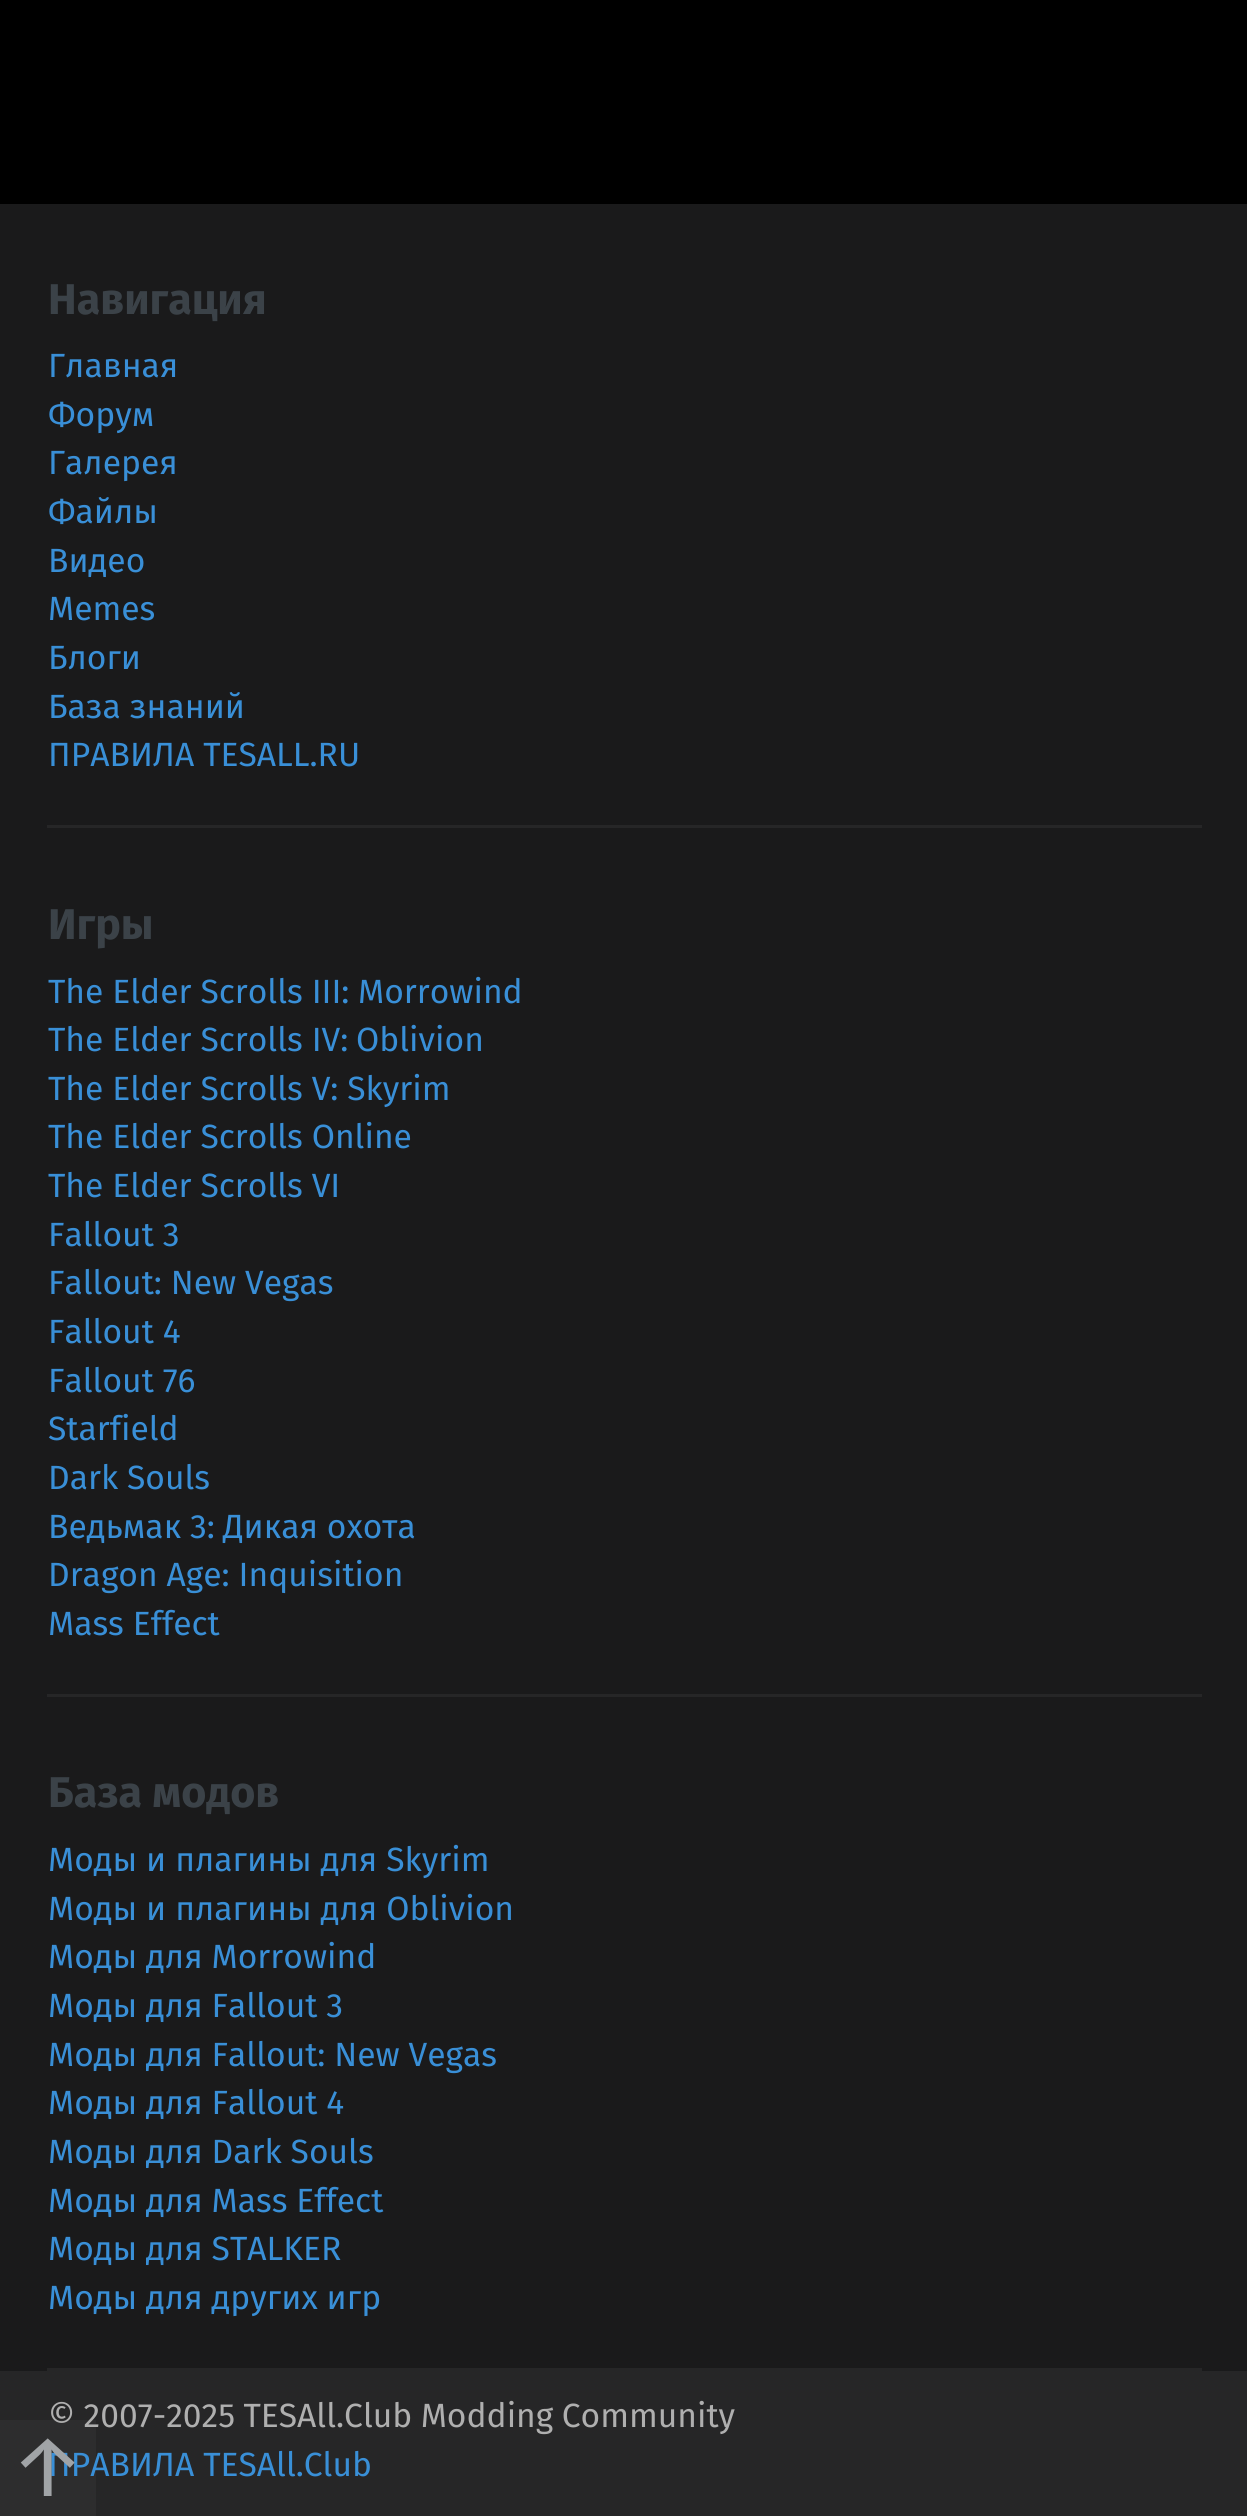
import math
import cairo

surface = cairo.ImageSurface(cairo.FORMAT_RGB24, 1247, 2516)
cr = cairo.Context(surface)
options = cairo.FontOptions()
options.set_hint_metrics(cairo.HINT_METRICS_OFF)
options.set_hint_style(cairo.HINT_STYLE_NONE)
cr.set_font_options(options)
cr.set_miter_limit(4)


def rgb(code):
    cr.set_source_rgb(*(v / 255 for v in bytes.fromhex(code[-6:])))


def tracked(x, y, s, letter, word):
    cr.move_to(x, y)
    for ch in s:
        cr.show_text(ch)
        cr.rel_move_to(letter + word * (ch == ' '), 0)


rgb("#000000")
cr.paint()
rgb("#262627")
cr.rectangle(0, 2371, 1247, 145)
cr.fill()
cr.set_source_rgba(0.361, 0.361, 0.361, 0.14)
cr.rectangle(0, 2420, 96, 96)
cr.fill()
rgb("#1a1a1b")
cr.rectangle(0, 204, 1247, 2167)
cr.fill()
rgb("#262627")
cr.rectangle(47, 825, 1155, 3)
cr.rectangle(47, 1694, 1155, 3)
cr.rectangle(47, 2368, 1155, 3)
cr.fill()
cr.select_font_face("Fira Sans", cairo.FONT_SLANT_NORMAL, cairo.FONT_WEIGHT_BOLD)
cr.set_font_size(43)
rgb("#3b4248")
cr.move_to(48, 314)
cr.show_text("Навигация")
cr.select_font_face("Fira Sans")
cr.set_font_size(33.6)
rgb("#398fd7")
for x, y, s in [
    (48, 377, "Главная"),
    (48, 426, "Форум"),
    (48, 474, "Галерея"),
    (48, 523, "Файлы"),
    (48, 572, "Видео"),
    (48, 620, "Memes"),
    (48, 669, "Блоги"),
    (48, 718, "База знаний"),
    (48, 766, "ПРАВИЛА TESALL.RU"),
]:
    cr.move_to(x, y)
    cr.show_text(s)
cr.select_font_face("Fira Sans", cairo.FONT_SLANT_NORMAL, cairo.FONT_WEIGHT_BOLD)
cr.set_font_size(43)
rgb("#3b4248")
cr.move_to(48, 939)
cr.show_text("Игры")
cr.select_font_face("Fira Sans")
cr.set_font_size(33.6)
rgb("#398fd7")
for x, y, s in [
    (48, 1003, "The Elder Scrolls III:"),
    (358, 1003, "Morrowind"),
    (48, 1051, "The Elder Scrolls IV:"),
    (356, 1051, "Oblivion"),
    (48, 1100, "The Elder Scrolls V: Skyrim"),
    (48, 1148, "The Elder Scrolls Online"),
    (48, 1197, "The Elder Scrolls VI"),
    (48, 1246, "Fallout 3"),
    (48, 1294, "Fallout: New Vegas"),
    (48, 1343, "Fallout 4"),
    (48, 1392, "Fallout 76"),
    (48, 1440, "Starfield"),
    (48, 1489, "Dark Souls"),
    (48, 1538, "Ведьмак 3:"),
    (223, 1538, "Дикая охота"),
    (48, 1586, "Dragon Age: Inquisition"),
    (48, 1635, "Mass Effect"),
]:
    cr.move_to(x, y)
    cr.show_text(s)
cr.select_font_face("Fira Sans", cairo.FONT_SLANT_NORMAL, cairo.FONT_WEIGHT_BOLD)
cr.set_font_size(43)
rgb("#3b4248")
cr.move_to(48, 1807)
cr.show_text("База модов")
cr.select_font_face("Fira Sans")
cr.set_font_size(33.6)
rgb("#398fd7")
for x, y, s in [
    (48, 1871, "Моды и плагины для Skyrim"),
    (48, 1920, "Моды и плагины для Oblivion"),
    (48, 1968, "Моды для Morrowind"),
    (48, 2017, "Моды для Fallout 3"),
    (48, 2066, "Моды для Fallout: New Vegas"),
    (48, 2114, "Моды для Fallout 4"),
    (48, 2163, "Моды для Dark Souls"),
    (48, 2212, "Моды для Mass Effect"),
    (48, 2260, "Моды для STALKER"),
    (48, 2309, "Моды для других игр"),
]:
    cr.move_to(x, y)
    cr.show_text(s)
rgb("#afafaf")
tracked(48, 2427, "© 2007-2025 TESAll.Club Modding Community", 0, -0.5)
rgb("#398fd7")
cr.move_to(48, 2476)
cr.show_text("ПРАВИЛА TESAll.Club")
cr.set_font_size(86)
rgb("#a1a4a7")
cr.move_to(9, 2496)
cr.show_text("↑")
surface.write_to_png("page.png")
